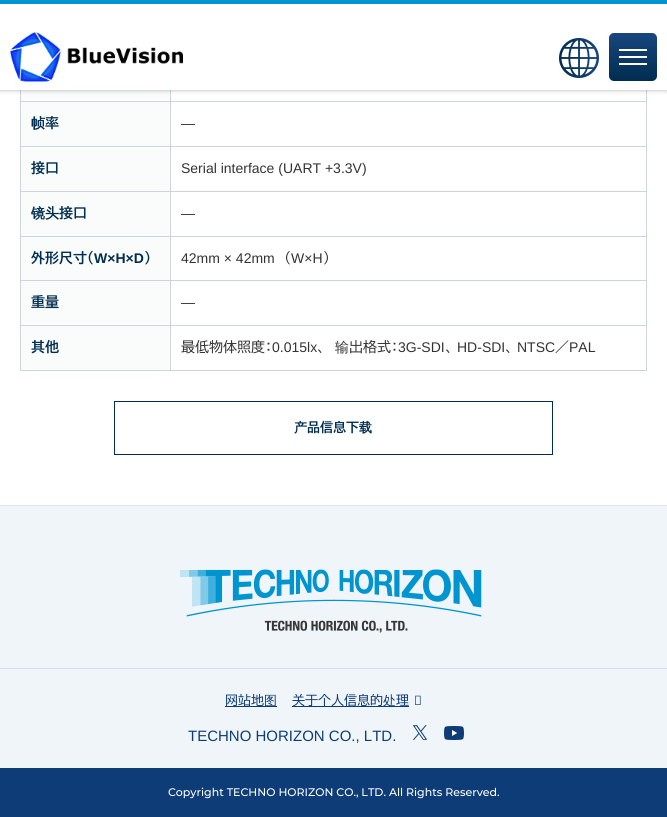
import math
import cairo

surface = cairo.ImageSurface(cairo.FORMAT_RGB24, 667, 817)
cr = cairo.Context(surface)
options = cairo.FontOptions()
options.set_hint_metrics(cairo.HINT_METRICS_OFF)
options.set_hint_style(cairo.HINT_STYLE_NONE)
cr.set_font_options(options)
cr.set_miter_limit(4)


def rgb(code):
    cr.set_source_rgb(*(v / 255 for v in bytes.fromhex(code[-6:])))


def rrect(x, y, w, h, r):
    cr.new_sub_path()
    for i, (u, v) in enumerate([(x + w - r, y + h - r), (x + r, y + h - r), (x + r, y + r), (x + w - r, y + r)]):
        cr.arc(u, v, r, i * math.pi / 2, (i + 1) * math.pi / 2)
    cr.close_path()


def soft_shadow(x, y, w, h, r, blur, alpha):
    cr.push_group_with_content(cairo.CONTENT_ALPHA)
    cr.set_operator(cairo.OPERATOR_SOURCE)
    for i in range(15, -16, -2):
        e = blur * i / 6
        if min(w, h) + 2 * e > 0:
            cr.set_source_rgba(0, 0, 0, alpha * math.erfc((i - 1) / 8.5) / 2)
            rrect(x - e, y - e, w + 2 * e, h + 2 * e, max(0, min(r + e + blur * .6, min(w, h) / 2 + e)))
            cr.fill()
    cr.mask(cr.pop_group())


def image(path, x, y, w, h):
    cr.save()
    cr.set_source_surface(cairo.ImageSurface.create_from_png(path), x, y)
    cr.rectangle(x, y, w, h)
    cr.fill()
    cr.restore()


rgb("#ffffff")
cr.paint()
for x, y, w, h, color in [
    (21, 90, 149, 11, "#fafbfb"),
    (20, 101, 627, 1, "#ccd5dc"),
    (20, 146, 627, 1, "#ccd5dc"),
    (20, 191, 627, 1, "#ccd5dc"),
    (20, 236, 627, 1, "#ccd5dc"),
    (20, 280, 627, 1, "#ccd5dc"),
    (20, 325, 627, 1, "#ccd5dc"),
    (646, 325, 1, 46, "#ccd5dc"),
    (646, 280, 1, 46, "#ccd5dc"),
    (646, 236, 1, 45, "#ccd5dc"),
    (646, 191, 1, 46, "#ccd5dc"),
    (646, 146, 1, 46, "#ccd5dc"),
    (646, 90, 1, 57, "#ccd5dc"),
    (170, 370, 477, 1, "#ccd5dc"),
    (170, 90, 1, 281, "#ccd5dc"),
    (20, 370, 151, 1, "#ccd5dc"),
    (20, 90, 1, 281, "#ccd5dc"),
]:
    rgb(color)
    cr.rectangle(x, y, w, h)
    cr.fill()
rgb("#000000")
soft_shadow(0, 0, 667, 90, 0, 2.5, 0.3)
rgb("#ffffff")
cr.rectangle(0, 4, 667, 86)
cr.fill()
rgb("#0095d1")
cr.rectangle(0, 0, 667, 4)
cr.fill()
image("img/1.png", 10, 32, 173, 50)
image("img/2.png", 559, 38, 40, 40)
gradient = cairo.LinearGradient(633, 33, 633, 81)
gradient.add_color_stop_rgba(0, 0.098, 0.275, 0.494, 1)
gradient.add_color_stop_rgba(1, 0, 0.176, 0.314, 1)
cr.set_source(gradient)
rrect(609, 33, 48, 48, 5)
cr.fill()
for x, y, w, h, color in [
    (619, 49, 28, 2, "#ffffff"),
    (619, 56, 28, 2, "#ffffff"),
    (619, 63, 28, 2, "#ffffff"),
    (21, 102, 149, 44, "#fafbfb"),
    (21, 147, 149, 44, "#fafbfb"),
    (21, 192, 149, 44, "#fafbfb"),
    (21, 237, 149, 43, "#fafbfb"),
    (21, 281, 149, 44, "#fafbfb"),
    (21, 326, 149, 44, "#fafbfb"),
]:
    rgb(color)
    cr.rectangle(x, y, w, h)
    cr.fill()
cr.rectangle(114.5, 401.5, 438, 53)
rgb("#002d50")
cr.set_line_width(1)
cr.stroke()
for x, y, w, h, color in [
    (0, 506, 667, 262, "#f0f5fa"),
    (0, 505, 667, 1, "#e0e5ed"),
    (0, 668, 667, 1, "#d8dee8"),
]:
    rgb(color)
    cr.rectangle(x, y, w, h)
    cr.fill()
image("img/3.png", 180, 569, 302, 64)
rgb("#0d3c77")
cr.rectangle(225, 706, 52, 1)
cr.fill()
cr.rectangle(292, 706, 117, 1)
cr.fill()
image("img/4.png", 415, 695, 6, 10)
image("img/5.png", 412, 725, 16, 15)
image("img/6.png", 444, 726, 20, 14)
cr.rectangle(0, 768, 667, 49)
cr.fill()
cr.select_font_face("WenQuanYi Zen Hei", cairo.FONT_SLANT_NORMAL, cairo.FONT_WEIGHT_BOLD)
cr.set_font_size(14)
rgb("#002d50")
cr.move_to(31, 128)
cr.show_text("帧")
cr.select_font_face("BIZ UDPGothic", cairo.FONT_SLANT_NORMAL, cairo.FONT_WEIGHT_BOLD)
cr.move_to(45, 128)
cr.show_text("率")
cr.select_font_face("Liberation Sans")
rgb("#333333")
cr.move_to(181, 128)
cr.show_text("―")
cr.select_font_face("BIZ UDPGothic", cairo.FONT_SLANT_NORMAL, cairo.FONT_WEIGHT_BOLD)
rgb("#002d50")
cr.move_to(31, 173)
cr.show_text("接口")
cr.select_font_face("Liberation Sans")
rgb("#333333")
cr.move_to(181, 173)
cr.show_text("Serial interface (UART +3.3V)")
cr.select_font_face("WenQuanYi Zen Hei", cairo.FONT_SLANT_NORMAL, cairo.FONT_WEIGHT_BOLD)
rgb("#002d50")
cr.move_to(31, 218)
cr.show_text("镜头")
cr.select_font_face("BIZ UDPGothic", cairo.FONT_SLANT_NORMAL, cairo.FONT_WEIGHT_BOLD)
cr.move_to(59, 218)
cr.show_text("接口")
cr.select_font_face("Liberation Sans")
rgb("#333333")
cr.move_to(181, 218)
cr.show_text("―")
cr.select_font_face("BIZ UDPGothic", cairo.FONT_SLANT_NORMAL, cairo.FONT_WEIGHT_BOLD)
rgb("#002d50")
cr.move_to(31, 263)
cr.show_text("外形尺寸（")
cr.select_font_face("Liberation Sans", cairo.FONT_SLANT_NORMAL, cairo.FONT_WEIGHT_BOLD)
cr.move_to(94, 263)
cr.show_text("W×H×D")
cr.select_font_face("BIZ UDPGothic", cairo.FONT_SLANT_NORMAL, cairo.FONT_WEIGHT_BOLD)
cr.move_to(144, 263)
cr.show_text("）")
cr.select_font_face("Liberation Sans")
rgb("#333333")
cr.move_to(181, 263)
cr.show_text("42mm × 42mm")
cr.select_font_face("BIZ UDPGothic")
cr.move_to(284, 263)
cr.show_text("（")
cr.select_font_face("Liberation Sans")
cr.move_to(291, 263)
cr.show_text("W×H")
cr.select_font_face("BIZ UDPGothic")
cr.move_to(323, 263)
cr.show_text("）")
cr.select_font_face("BIZ UDPGothic", cairo.FONT_SLANT_NORMAL, cairo.FONT_WEIGHT_BOLD)
rgb("#002d50")
cr.move_to(31, 307)
cr.show_text("重量")
cr.select_font_face("Liberation Sans")
rgb("#333333")
cr.move_to(181, 307)
cr.show_text("―")
cr.select_font_face("BIZ UDPGothic", cairo.FONT_SLANT_NORMAL, cairo.FONT_WEIGHT_BOLD)
rgb("#002d50")
cr.move_to(31, 352)
cr.show_text("其他")
cr.select_font_face("BIZ UDPGothic")
rgb("#333333")
cr.move_to(181, 352)
cr.show_text("最低物体照度：")
cr.select_font_face("Liberation Sans")
cr.move_to(272, 352)
cr.show_text("0.015lx")
cr.select_font_face("BIZ UDPGothic")
cr.move_to(317, 352)
cr.show_text("、")
cr.select_font_face("WenQuanYi Zen Hei Medium")
cr.move_to(335, 352)
cr.show_text("输")
cr.select_font_face("BIZ UDPGothic")
cr.move_to(349, 352)
cr.show_text("出格式：")
cr.select_font_face("Liberation Sans")
cr.move_to(398, 352)
cr.show_text("3G-SDI")
cr.select_font_face("BIZ UDPGothic")
cr.move_to(445, 352)
cr.show_text("、")
cr.select_font_face("Liberation Sans")
cr.move_to(457, 352)
cr.show_text("HD-SDI")
cr.select_font_face("BIZ UDPGothic")
cr.move_to(505, 352)
cr.show_text("、")
cr.select_font_face("Liberation Sans")
cr.move_to(517, 352)
cr.show_text("NTSC")
cr.select_font_face("BIZ UDPGothic")
cr.move_to(555, 352)
cr.show_text("／")
cr.select_font_face("Liberation Sans")
cr.move_to(569, 352)
cr.show_text("PAL")
cr.select_font_face("WenQuanYi Zen Hei", cairo.FONT_SLANT_NORMAL, cairo.FONT_WEIGHT_BOLD)
cr.set_font_size(13)
rgb("#002d50")
cr.move_to(294, 432)
cr.show_text("产")
cr.select_font_face("BIZ UDPGothic", cairo.FONT_SLANT_NORMAL, cairo.FONT_WEIGHT_BOLD)
cr.move_to(307, 432)
cr.show_text("品信息下")
cr.select_font_face("WenQuanYi Zen Hei", cairo.FONT_SLANT_NORMAL, cairo.FONT_WEIGHT_BOLD)
cr.move_to(359, 432)
cr.show_text("载")
cr.select_font_face("BIZ UDPGothic")
rgb("#0d3c77")
cr.move_to(225, 705)
cr.show_text("网站地")
cr.select_font_face("WenQuanYi Zen Hei Medium")
cr.move_to(264, 705)
cr.show_text("图")
cr.select_font_face("BIZ UDPGothic")
cr.move_to(292, 705)
cr.show_text("关于个人信息的")
cr.select_font_face("WenQuanYi Zen Hei Medium")
cr.move_to(383, 705)
cr.show_text("处")
cr.select_font_face("BIZ UDPGothic")
cr.move_to(396, 705)
cr.show_text("理")
cr.select_font_face("Liberation Sans")
cr.set_font_size(15)
cr.move_to(188, 741)
cr.show_text("TECHNO HORIZON CO., LTD.")
cr.select_font_face("Montserrat Medium")
cr.set_font_size(11)
rgb("#ffffff")
cr.move_to(168, 796)
cr.show_text("Copyright TECHNO HORIZON CO., LTD. All Rights Reserved.")
surface.write_to_png("page.png")
